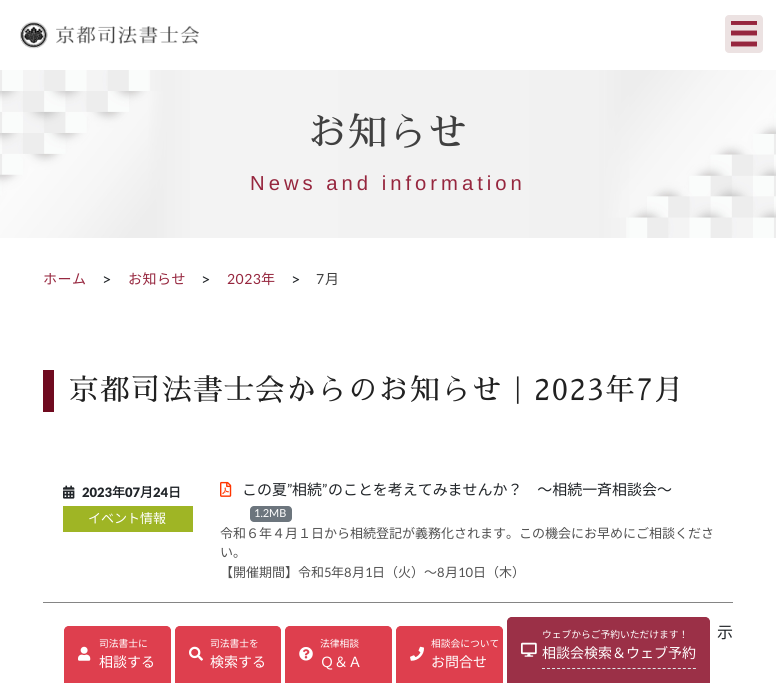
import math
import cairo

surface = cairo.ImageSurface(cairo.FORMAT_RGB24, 776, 683)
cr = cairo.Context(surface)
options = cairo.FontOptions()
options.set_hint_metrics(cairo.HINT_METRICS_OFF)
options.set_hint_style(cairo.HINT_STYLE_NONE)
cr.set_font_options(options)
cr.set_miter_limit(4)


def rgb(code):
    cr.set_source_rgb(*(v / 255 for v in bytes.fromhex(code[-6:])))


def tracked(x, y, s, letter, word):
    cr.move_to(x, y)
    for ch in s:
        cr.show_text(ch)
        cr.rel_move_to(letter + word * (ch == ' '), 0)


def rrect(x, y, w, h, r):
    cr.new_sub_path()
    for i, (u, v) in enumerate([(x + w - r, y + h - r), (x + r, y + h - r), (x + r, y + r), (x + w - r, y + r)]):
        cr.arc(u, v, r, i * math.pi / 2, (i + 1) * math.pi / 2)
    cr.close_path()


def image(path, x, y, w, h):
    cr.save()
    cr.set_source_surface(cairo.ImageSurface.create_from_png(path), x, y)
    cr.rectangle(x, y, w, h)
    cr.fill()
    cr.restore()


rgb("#ffffff")
cr.paint()
image("img/1.png", 20, 21, 179, 28)
rgb("#ece2e2")
rrect(725, 15, 38, 38, 4)
cr.fill()
cr.save()
cr.rectangle(731, 21, 26, 26)
cr.clip()
cr.new_path()
cr.move_to(731, 22.5)
cr.line_to(757, 22.5)
cr.move_to(731, 33)
cr.line_to(757, 33)
cr.move_to(731, 44)
cr.line_to(757, 44)
rgb("#96263e")
cr.set_line_width(4.9)
cr.stroke()
cr.restore()
image("img/2.png", 0, 70, 776, 168)
rgb("#6f0a1f")
cr.rectangle(43, 370, 11, 42)
cr.fill()
rgb("#858585")
cr.rectangle(43, 602, 690, 1)
cr.fill()
image("img/3.png", 63, 485, 12, 14)
rgb("#9fb525")
cr.rectangle(63, 506, 130, 26)
cr.fill()
image("img/4.png", 220, 481, 12, 16)
rgb("#6c757d")
rrect(250, 506, 42, 16, 4)
cr.fill()
rgb("#de3f4e")
cr.new_path()
cr.move_to(68, 626)
cr.line_to(167, 626)
cr.curve_to(169, 626, 171, 628, 171, 630)
cr.line_to(171, 683)
cr.line_to(64, 683)
cr.line_to(64, 630)
cr.curve_to(64, 628, 66, 626, 68, 626)
cr.close_path()
cr.fill()
rgb("#ffffff")
cr.set_fill_rule(cairo.FILL_RULE_EVEN_ODD)
cr.new_path()
cr.move_to(68, 625)
cr.line_to(167, 625)
cr.curve_to(170, 625, 172, 627, 172, 630)
cr.line_to(172, 683)
cr.line_to(63, 683)
cr.line_to(63, 630)
cr.curve_to(63, 627, 65, 625, 68, 625)
cr.close_path()
cr.move_to(68, 626)
cr.line_to(167, 626)
cr.curve_to(169, 626, 171, 628, 171, 630)
cr.line_to(171, 683)
cr.line_to(64, 683)
cr.line_to(64, 630)
cr.curve_to(64, 628, 66, 626, 68, 626)
cr.close_path()
cr.fill()
image("img/5.png", 78, 646, 13, 15)
rgb("#de3f4e")
cr.new_path()
cr.move_to(179, 626)
cr.line_to(277, 626)
cr.curve_to(279, 626, 281, 628, 281, 630)
cr.line_to(281, 683)
cr.line_to(175, 683)
cr.line_to(175, 630)
cr.curve_to(175, 628, 177, 626, 179, 626)
cr.close_path()
cr.fill()
rgb("#ffffff")
cr.new_path()
cr.move_to(179, 625)
cr.line_to(277, 625)
cr.curve_to(280, 625, 282, 627, 282, 630)
cr.line_to(282, 683)
cr.line_to(174, 683)
cr.line_to(174, 630)
cr.curve_to(174, 627, 176, 625, 179, 625)
cr.close_path()
cr.move_to(179, 626)
cr.line_to(277, 626)
cr.curve_to(279, 626, 281, 628, 281, 630)
cr.line_to(281, 683)
cr.line_to(175, 683)
cr.line_to(175, 630)
cr.curve_to(175, 628, 177, 626, 179, 626)
cr.close_path()
cr.fill()
image("img/6.png", 189, 646, 14, 15)
rgb("#de3f4e")
cr.new_path()
cr.move_to(289, 626)
cr.line_to(388, 626)
cr.curve_to(390, 626, 392, 628, 392, 630)
cr.line_to(392, 683)
cr.line_to(285, 683)
cr.line_to(285, 630)
cr.curve_to(285, 628, 287, 626, 289, 626)
cr.close_path()
cr.fill()
rgb("#ffffff")
cr.new_path()
cr.move_to(289, 625)
cr.line_to(388, 625)
cr.curve_to(391, 625, 393, 627, 393, 630)
cr.line_to(393, 683)
cr.line_to(284, 683)
cr.line_to(284, 630)
cr.curve_to(284, 627, 286, 625, 289, 625)
cr.close_path()
cr.move_to(289, 626)
cr.line_to(388, 626)
cr.curve_to(390, 626, 392, 628, 392, 630)
cr.line_to(392, 683)
cr.line_to(285, 683)
cr.line_to(285, 630)
cr.curve_to(285, 628, 287, 626, 289, 626)
cr.close_path()
cr.fill()
image("img/7.png", 299, 647, 14, 14)
rgb("#de3f4e")
cr.new_path()
cr.move_to(400, 626)
cr.line_to(499, 626)
cr.curve_to(501, 626, 503, 628, 503, 630)
cr.line_to(503, 683)
cr.line_to(396, 683)
cr.line_to(396, 630)
cr.curve_to(396, 628, 398, 626, 400, 626)
cr.close_path()
cr.fill()
rgb("#ffffff")
cr.new_path()
cr.move_to(400, 625)
cr.line_to(499, 625)
cr.curve_to(502, 625, 504, 627, 504, 630)
cr.line_to(504, 683)
cr.line_to(395, 683)
cr.line_to(395, 630)
cr.curve_to(395, 627, 397, 625, 400, 625)
cr.close_path()
cr.move_to(400, 626)
cr.line_to(499, 626)
cr.curve_to(501, 626, 503, 628, 503, 630)
cr.line_to(503, 683)
cr.line_to(396, 683)
cr.line_to(396, 630)
cr.curve_to(396, 628, 398, 626, 400, 626)
cr.close_path()
cr.fill()
image("img/8.png", 410, 646, 14, 15)
cr.set_source_rgba(0.588, 0.149, 0.243, 0.95)
cr.new_path()
cr.move_to(511, 617)
cr.line_to(706, 617)
cr.curve_to(708, 617, 710, 619, 710, 621)
cr.line_to(710, 683)
cr.line_to(507, 683)
cr.line_to(507, 621)
cr.curve_to(507, 619, 509, 617, 511, 617)
cr.close_path()
cr.fill()
rgb("#ffffff")
cr.new_path()
cr.move_to(511, 616)
cr.line_to(706, 616)
cr.curve_to(709, 616, 711, 618, 711, 621)
cr.line_to(711, 683)
cr.line_to(506, 683)
cr.line_to(506, 621)
cr.curve_to(506, 618, 508, 616, 511, 616)
cr.close_path()
cr.move_to(511, 617)
cr.line_to(706, 617)
cr.curve_to(708, 617, 710, 619, 710, 621)
cr.line_to(710, 683)
cr.line_to(507, 683)
cr.line_to(507, 621)
cr.curve_to(507, 619, 509, 617, 511, 617)
cr.close_path()
cr.fill()
image("img/9.png", 521, 642, 16, 15)
cr.new_path()
cr.move_to(542, 668.5)
cr.line_to(696, 668.5)
rgb("#dee2e6")
cr.set_line_width(1)
cr.set_dash([3, 2.03])
cr.stroke()
cr.select_font_face("Sawarabi Mincho")
cr.set_font_size(39)
rgb("#404040")
tracked(308, 146, "お知らせ", 1, 0)
cr.select_font_face("Liberation Sans")
cr.set_font_size(20.25)
rgb("#96263e")
tracked(250, 190, "News and information", 4, 0)
cr.select_font_face("Noto Sans JP Thin")
cr.set_font_size(14)
tracked(43, 284, "ホーム", 0.5, 0)
cr.select_font_face("Lato")
cr.set_font_size(16)
rgb("#212529")
cr.move_to(102, 285)
cr.show_text(">")
cr.select_font_face("Noto Sans JP Thin")
cr.set_font_size(14)
rgb("#96263e")
tracked(128, 284, "お知らせ", 0.5, 0)
cr.select_font_face("Lato")
cr.set_font_size(16)
rgb("#212529")
cr.move_to(201, 285)
cr.show_text(">")
cr.set_font_size(14)
rgb("#96263e")
tracked(227, 284, "2023", 0.5, 0)
cr.select_font_face("Noto Sans JP Thin")
tracked(261, 284, "年", 0.5, 0)
cr.select_font_face("Lato")
cr.set_font_size(16)
rgb("#212529")
cr.move_to(291, 285)
cr.show_text(">")
cr.set_font_size(14)
rgb("#404040")
tracked(316, 284, "7", 0.5, 0)
cr.select_font_face("Noto Sans JP Thin")
tracked(325, 284, "月", 0.5, 0)
cr.select_font_face("Sawarabi Mincho")
cr.set_font_size(29.5)
rgb("#212121")
tracked(69, 400, "京都司法書士会からのお知らせ｜2023年7月", 1.5, 0)
cr.select_font_face("Lato Black")
cr.set_font_size(13)
rgb("#212529")
cr.move_to(82, 497)
cr.show_text("2023")
cr.select_font_face("Noto Sans JP", cairo.FONT_SLANT_NORMAL, cairo.FONT_WEIGHT_BOLD)
cr.move_to(112, 497)
cr.show_text("年")
cr.select_font_face("Lato Black")
cr.move_to(125, 497)
cr.show_text("07")
cr.select_font_face("Noto Sans JP", cairo.FONT_SLANT_NORMAL, cairo.FONT_WEIGHT_BOLD)
cr.move_to(140, 497)
cr.show_text("月")
cr.select_font_face("Lato Black")
cr.move_to(153, 497)
cr.show_text("24")
cr.select_font_face("Noto Sans JP", cairo.FONT_SLANT_NORMAL, cairo.FONT_WEIGHT_BOLD)
cr.move_to(168, 497)
cr.show_text("日")
cr.select_font_face("Noto Sans JP Thin")
rgb("#ffffff")
cr.move_to(88, 523)
cr.show_text("イベント情報")
cr.set_font_size(14.95)
rgb("#212529")
cr.move_to(242, 495)
cr.show_text("この夏")
cr.select_font_face("Lato")
cr.move_to(287, 495)
cr.show_text("”")
cr.select_font_face("Noto Sans JP Thin")
cr.move_to(292, 495)
cr.show_text("相続")
cr.select_font_face("Lato")
cr.move_to(322, 495)
cr.show_text("”")
cr.select_font_face("Noto Sans JP Thin")
cr.move_to(328, 495)
cr.show_text("のことを考えてみませんか？　～相続一斉相談会～")
cr.select_font_face("Lato")
cr.set_font_size(11)
rgb("#ffffff")
cr.move_to(254, 517)
cr.show_text("1.2MB")
cr.select_font_face("Noto Sans JP Thin")
cr.set_font_size(13)
rgb("#515151")
for x, y, s in [
    (220, 538, "令和６年４月１日から相続登記が義務化されます。この機会にお早めにご相談くださ"),
    (220, 557, "い。"),
    (220, 577, "【開催期間】令和"),
]:
    cr.move_to(x, y)
    cr.show_text(s)
cr.select_font_face("Lato")
cr.move_to(324, 577)
cr.show_text("5")
cr.select_font_face("Noto Sans JP Thin")
cr.move_to(331, 577)
cr.show_text("年")
cr.select_font_face("Lato")
cr.move_to(344, 577)
cr.show_text("8")
cr.select_font_face("Noto Sans JP Thin")
cr.move_to(352, 577)
cr.show_text("月")
cr.select_font_face("Lato")
cr.move_to(365, 577)
cr.show_text("1")
cr.select_font_face("Noto Sans JP Thin")
cr.move_to(372, 577)
cr.show_text("日（火）～")
cr.select_font_face("Lato")
cr.move_to(437, 577)
cr.show_text("8")
cr.select_font_face("Noto Sans JP Thin")
cr.move_to(445, 577)
cr.show_text("月")
cr.select_font_face("Lato")
cr.move_to(458, 577)
cr.show_text("10")
cr.select_font_face("Noto Sans JP Thin")
cr.move_to(473, 577)
cr.show_text("日（木）")
cr.set_font_size(16)
rgb("#212529")
tracked(717, 638, "示", 0, 1)
cr.set_font_size(9.75)
rgb("#ffffff")
cr.move_to(99, 647)
cr.show_text("司法書士に")
cr.set_font_size(14)
cr.move_to(99, 667)
cr.show_text("相談する")
cr.set_font_size(9.75)
cr.move_to(210, 647)
cr.show_text("司法書士を")
cr.set_font_size(14)
cr.move_to(210, 667)
cr.show_text("検索する")
cr.set_font_size(9.75)
cr.move_to(320, 647)
cr.show_text("法律相談")
cr.set_font_size(14)
cr.move_to(320, 667)
cr.show_text("Ｑ＆Ａ")
cr.set_font_size(9.75)
cr.move_to(431, 647)
cr.show_text("相談会について")
cr.set_font_size(14)
cr.move_to(431, 667)
cr.show_text("お問合せ")
cr.set_font_size(9.75)
cr.move_to(542, 638)
cr.show_text("ウェブからご予約いただけます！")
cr.set_font_size(14)
cr.move_to(542, 658)
cr.show_text("相談会検索＆ウェブ予約")
surface.write_to_png("page.png")
